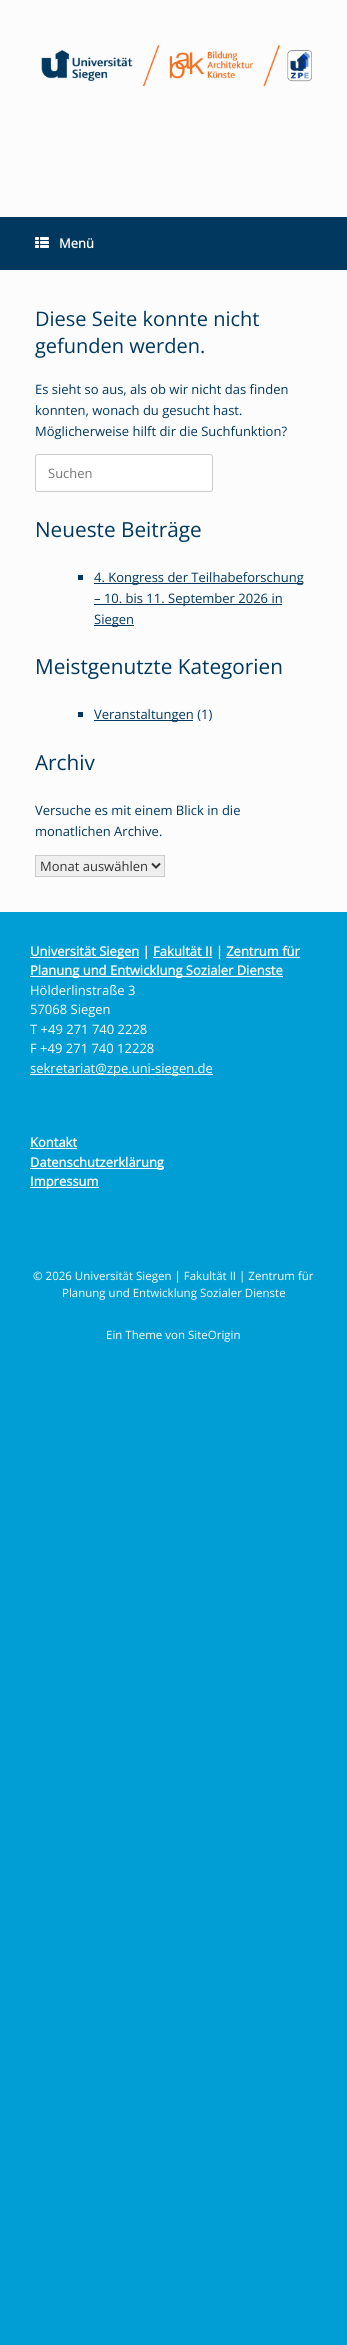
import math
import cairo

surface = cairo.ImageSurface(cairo.FORMAT_RGB24, 347, 2345)
cr = cairo.Context(surface)
options = cairo.FontOptions()
options.set_hint_metrics(cairo.HINT_METRICS_OFF)
options.set_hint_style(cairo.HINT_STYLE_NONE)
cr.set_font_options(options)
cr.set_miter_limit(4)


def rgb(code):
    cr.set_source_rgb(*(v / 255 for v in bytes.fromhex(code[-6:])))


def rrect(x, y, w, h, r):
    cr.new_sub_path()
    for i, (u, v) in enumerate([(x + w - r, y + h - r), (x + r, y + h - r), (x + r, y + r), (x + w - r, y + r)]):
        cr.arc(u, v, r, i * math.pi / 2, (i + 1) * math.pi / 2)
    cr.close_path()


def image(path, x, y, w, h):
    cr.save()
    cr.set_source_surface(cairo.ImageSurface.create_from_png(path), x, y)
    cr.rectangle(x, y, w, h)
    cr.fill()
    cr.restore()


rgb("#009ed4")
cr.paint()
rgb("#fcfcfc")
cr.rectangle(0, 0, 347, 217)
cr.fill()
image("img/1.png", 41, 45, 271, 41)
rgb("#00385f")
cr.rectangle(0, 217, 347, 53)
cr.fill()
image("img/2.png", 35, 237, 14, 11)
rgb("#fcfcfc")
cr.rectangle(0, 270, 347, 642)
cr.fill()
rgb("#ffffff")
rrect(35.5, 454.5, 177, 37, 2.5)
cr.fill_preserve()
rgb("#cccccc")
cr.set_line_width(1)
cr.stroke()
for x, y, w, h, color in [
    (78, 575, 5, 5, "#00385f"),
    (94, 583, 209, 1, "#00385f"),
    (94, 604, 188, 1, "#00385f"),
    (94, 625, 40, 1, "#00385f"),
    (78, 712, 5, 5, "#00385f"),
    (94, 720, 99, 1, "#00385f"),
]:
    rgb(color)
    cr.rectangle(x, y, w, h)
    cr.fill()
rgb("#efefef")
cr.rectangle(35.5, 855.5, 129, 21)
cr.fill_preserve()
rgb("#cccccc")
cr.stroke()
cr.new_path()
cr.move_to(152, 863.5)
cr.line_to(156, 867.5)
cr.line_to(160, 863.5)
rgb("#333333")
cr.set_line_width(2)
cr.stroke()
for x, y, w, h, color in [
    (30, 957, 109, 1, "#ffffff"),
    (153, 957, 59, 1, "#ffffff"),
    (226, 957, 74, 1, "#ffffff"),
    (30, 976, 253, 1, "#ffffff"),
    (30, 1074, 183, 1, "#ffffff"),
    (30, 1148, 47, 1, "#ffffff"),
    (30, 1168, 134, 1, "#ffffff"),
    (30, 1187, 69, 1, "#ffffff"),
]:
    rgb(color)
    cr.rectangle(x, y, w, h)
    cr.fill()
cr.select_font_face("Open Sans", cairo.FONT_SLANT_NORMAL, cairo.FONT_WEIGHT_BOLD)
cr.set_font_size(13)
cr.move_to(59, 248)
cr.show_text("Menü")
cr.select_font_face("Open Sans")
cr.set_font_size(20)
rgb("#00385f")
cr.move_to(35, 326)
cr.show_text("Diese Seite konnte nicht")
cr.move_to(35, 353)
cr.show_text("gefunden werden.")
cr.set_font_size(13)
for x, y, s in [
    (35, 394, "Es sieht so aus, als ob wir nicht das finden"),
    (35, 415, "konnten, wonach du gesucht hast."),
    (35, 436, "Möglicherweise hilft dir die Suchfunktion?"),
]:
    cr.move_to(x, y)
    cr.show_text(s)
rgb("#757575")
cr.move_to(48, 478)
cr.show_text("Suchen")
cr.set_font_size(20.75)
rgb("#00385f")
cr.move_to(35, 537)
cr.show_text("Neueste Beiträge")
cr.set_font_size(13)
for x, y, s in [
    (94, 582, "4. Kongress der Teilhabeforschung"),
    (94, 603, "– 10. bis 11. September 2026 in"),
    (94, 624, "Siegen"),
]:
    cr.move_to(x, y)
    cr.show_text(s)
cr.set_font_size(20.75)
cr.move_to(35, 674)
cr.show_text("Meistgenutzte Kategorien")
cr.set_font_size(13)
cr.move_to(94, 719)
cr.show_text("Veranstaltungen (1)")
cr.set_font_size(20.75)
cr.move_to(35, 770)
cr.show_text("Archiv")
cr.set_font_size(13)
cr.move_to(35, 815)
cr.show_text("Versuche es mit einem Blick in die")
cr.move_to(35, 836)
cr.show_text("monatlichen Archive.")
rgb("#333333")
cr.move_to(40, 871)
cr.show_text("Monat auswählen")
cr.select_font_face("Open Sans", cairo.FONT_SLANT_NORMAL, cairo.FONT_WEIGHT_BOLD)
rgb("#ffffff")
cr.move_to(30, 956)
cr.show_text("Universität Siegen | Fakultät II | Zentrum für")
cr.move_to(30, 975)
cr.show_text("Planung und Entwicklung Sozialer Dienste")
cr.select_font_face("Open Sans")
for x, y, s in [
    (30, 995, "Hölderlinstraße 3"),
    (30, 1014, "57068 Siegen"),
    (30, 1034, "T +49 271 740 2228"),
    (30, 1053, "F +49 271 740 12228"),
    (30, 1073, "sekretariat@zpe.uni-siegen.de"),
]:
    cr.move_to(x, y)
    cr.show_text(s)
cr.select_font_face("Open Sans", cairo.FONT_SLANT_NORMAL, cairo.FONT_WEIGHT_BOLD)
for x, y, s in [
    (30, 1147, "Kontakt"),
    (30, 1167, "Datenschutzerklärung"),
    (30, 1186, "Impressum"),
]:
    cr.move_to(x, y)
    cr.show_text(s)
cr.select_font_face("Open Sans")
cr.set_font_size(11.5)
for x, y, s in [
    (33, 1280, "© 2026 Universität Siegen | Fakultät II | Zentrum für"),
    (62, 1297, "Planung und Entwicklung Sozialer Dienste"),
    (106, 1339, "Ein Theme von SiteOrigin"),
]:
    cr.move_to(x, y)
    cr.show_text(s)
surface.write_to_png("page.png")
